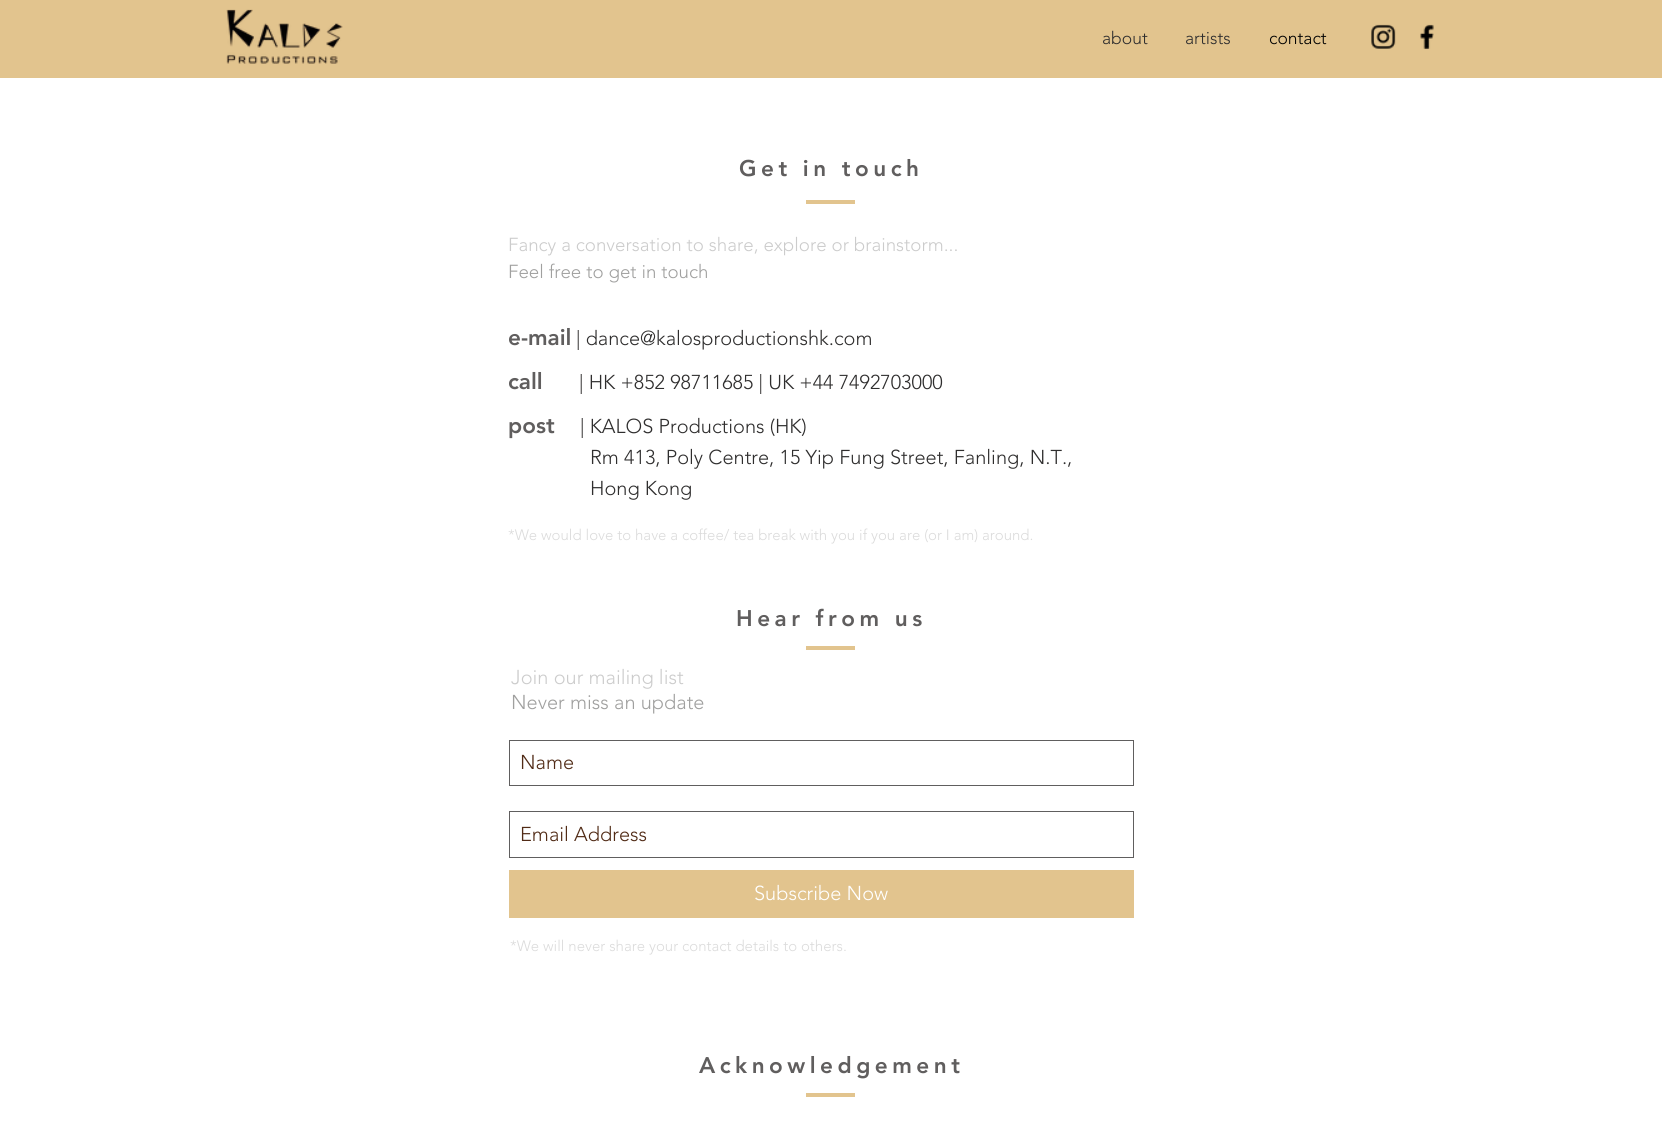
import math
import cairo

surface = cairo.ImageSurface(cairo.FORMAT_RGB24, 1662, 1135)
cr = cairo.Context(surface)
options = cairo.FontOptions()
options.set_hint_metrics(cairo.HINT_METRICS_OFF)
options.set_hint_style(cairo.HINT_STYLE_NONE)
cr.set_font_options(options)
cr.set_miter_limit(4)


def rgb(code):
    cr.set_source_rgb(*(v / 255 for v in bytes.fromhex(code[-6:])))


def tracked(x, y, s, letter, word):
    cr.move_to(x, y)
    for ch in s:
        cr.show_text(ch)
        cr.rel_move_to(letter + word * (ch == ' '), 0)


def image(path, x, y, w, h):
    cr.save()
    cr.set_source_surface(cairo.ImageSurface.create_from_png(path), x, y)
    cr.rectangle(x, y, w, h)
    cr.fill()
    cr.restore()


rgb("#ffffff")
cr.paint()
rgb("#e2c48e")
cr.rectangle(0, 0, 1662, 78)
cr.fill()
image("img/1.png", 226, 9, 117, 55)
image("img/2.png", 1371, 24, 25, 25)
image("img/3.png", 1420, 24, 14, 26)
cr.rectangle(806, 200, 49, 4)
cr.fill()
cr.rectangle(806, 646, 49, 4)
cr.fill()
cr.rectangle(509.5, 740.5, 624, 45)
rgb("#605e5e")
cr.set_line_width(1)
cr.stroke()
cr.rectangle(509.5, 811.5, 624, 46)
cr.stroke()
rgb("#e2c48e")
cr.rectangle(509, 870, 625, 48)
cr.fill()
cr.rectangle(806, 1093, 49, 4)
cr.fill()
cr.select_font_face("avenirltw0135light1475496 Light")
cr.set_font_size(17.5)
rgb("#2f2e2e")
cr.move_to(1102, 44)
cr.show_text("about")
cr.move_to(1185, 44)
cr.show_text("artists")
rgb("#000000")
cr.move_to(1269, 44)
cr.show_text("contact")
cr.select_font_face("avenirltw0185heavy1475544 Black")
cr.set_font_size(22.5)
rgb("#605e5e")
tracked(739, 176, "Get in touch", 4.5, 0)
cr.select_font_face("avenirltw0135light1475496 Light")
cr.set_font_size(18.75)
rgb("#cccccc")
cr.move_to(508, 251)
cr.show_text("Fancy a conversation to share, explore or brainstorm...")
rgb("#a0a09f")
cr.move_to(508, 278)
cr.show_text("Feel free to get in touch")
cr.select_font_face("avenirltw0185heavy1475544 Black")
cr.set_font_size(22.5)
rgb("#605e5e")
cr.move_to(508, 345)
cr.show_text("e-mail")
cr.select_font_face("avenirltw0135light1475496 Light")
cr.set_font_size(20)
rgb("#2f2e2e")
cr.move_to(576, 345)
cr.show_text("| dance@kalosproductionshk.com")
cr.select_font_face("avenirltw0185heavy1475544 Black")
cr.set_font_size(22.5)
rgb("#605e5e")
cr.move_to(508, 389)
cr.show_text("call")
cr.select_font_face("avenirltw0135light1475496 Light")
cr.set_font_size(20)
rgb("#2f2e2e")
cr.move_to(579, 389)
cr.show_text("| HK +852 98711685 | UK +44 7492703000")
cr.select_font_face("avenirltw0185heavy1475544 Black")
cr.set_font_size(22.5)
rgb("#605e5e")
cr.move_to(508, 433)
cr.show_text("post")
cr.select_font_face("avenirltw0135light1475496 Light")
cr.set_font_size(20)
rgb("#2f2e2e")
for x, y, s in [
    (580, 433, "| KALOS Productions (HK)"),
    (590, 464, "Rm 413, Poly Centre, 15 Yip Fung Street, Fanling, N.T.,"),
    (590, 495, "Hong Kong"),
]:
    cr.move_to(x, y)
    cr.show_text(s)
cr.set_font_size(15)
rgb("#dbdbdb")
cr.move_to(508, 540)
cr.show_text("*We would love to have a coffee/ tea break with you if you are (or I am) around.")
cr.select_font_face("avenirltw0185heavy1475544 Black")
cr.set_font_size(22.5)
rgb("#605e5e")
tracked(736, 626, "Hear from us", 4.5, 0)
cr.select_font_face("avenirltw0135light1475496 Light")
cr.set_font_size(20)
rgb("#cccccc")
cr.move_to(511, 684)
cr.show_text("Join our mailing list")
rgb("#a0a09f")
cr.move_to(511, 709)
cr.show_text("Never miss an update")
rgb("#512b16")
cr.move_to(520, 769)
cr.show_text("Name")
cr.move_to(520, 841)
cr.show_text("Email Address")
rgb("#ffffff")
cr.move_to(754, 900)
cr.show_text("Subscribe Now")
cr.set_font_size(15)
rgb("#dbdbdb")
cr.move_to(510, 951)
cr.show_text("*We will never share your contact details to others.")
cr.select_font_face("avenirltw0185heavy1475544 Black")
cr.set_font_size(22.5)
rgb("#605e5e")
tracked(699, 1073, "Acknowledgement", 4.5, 0)
surface.write_to_png("page.png")
